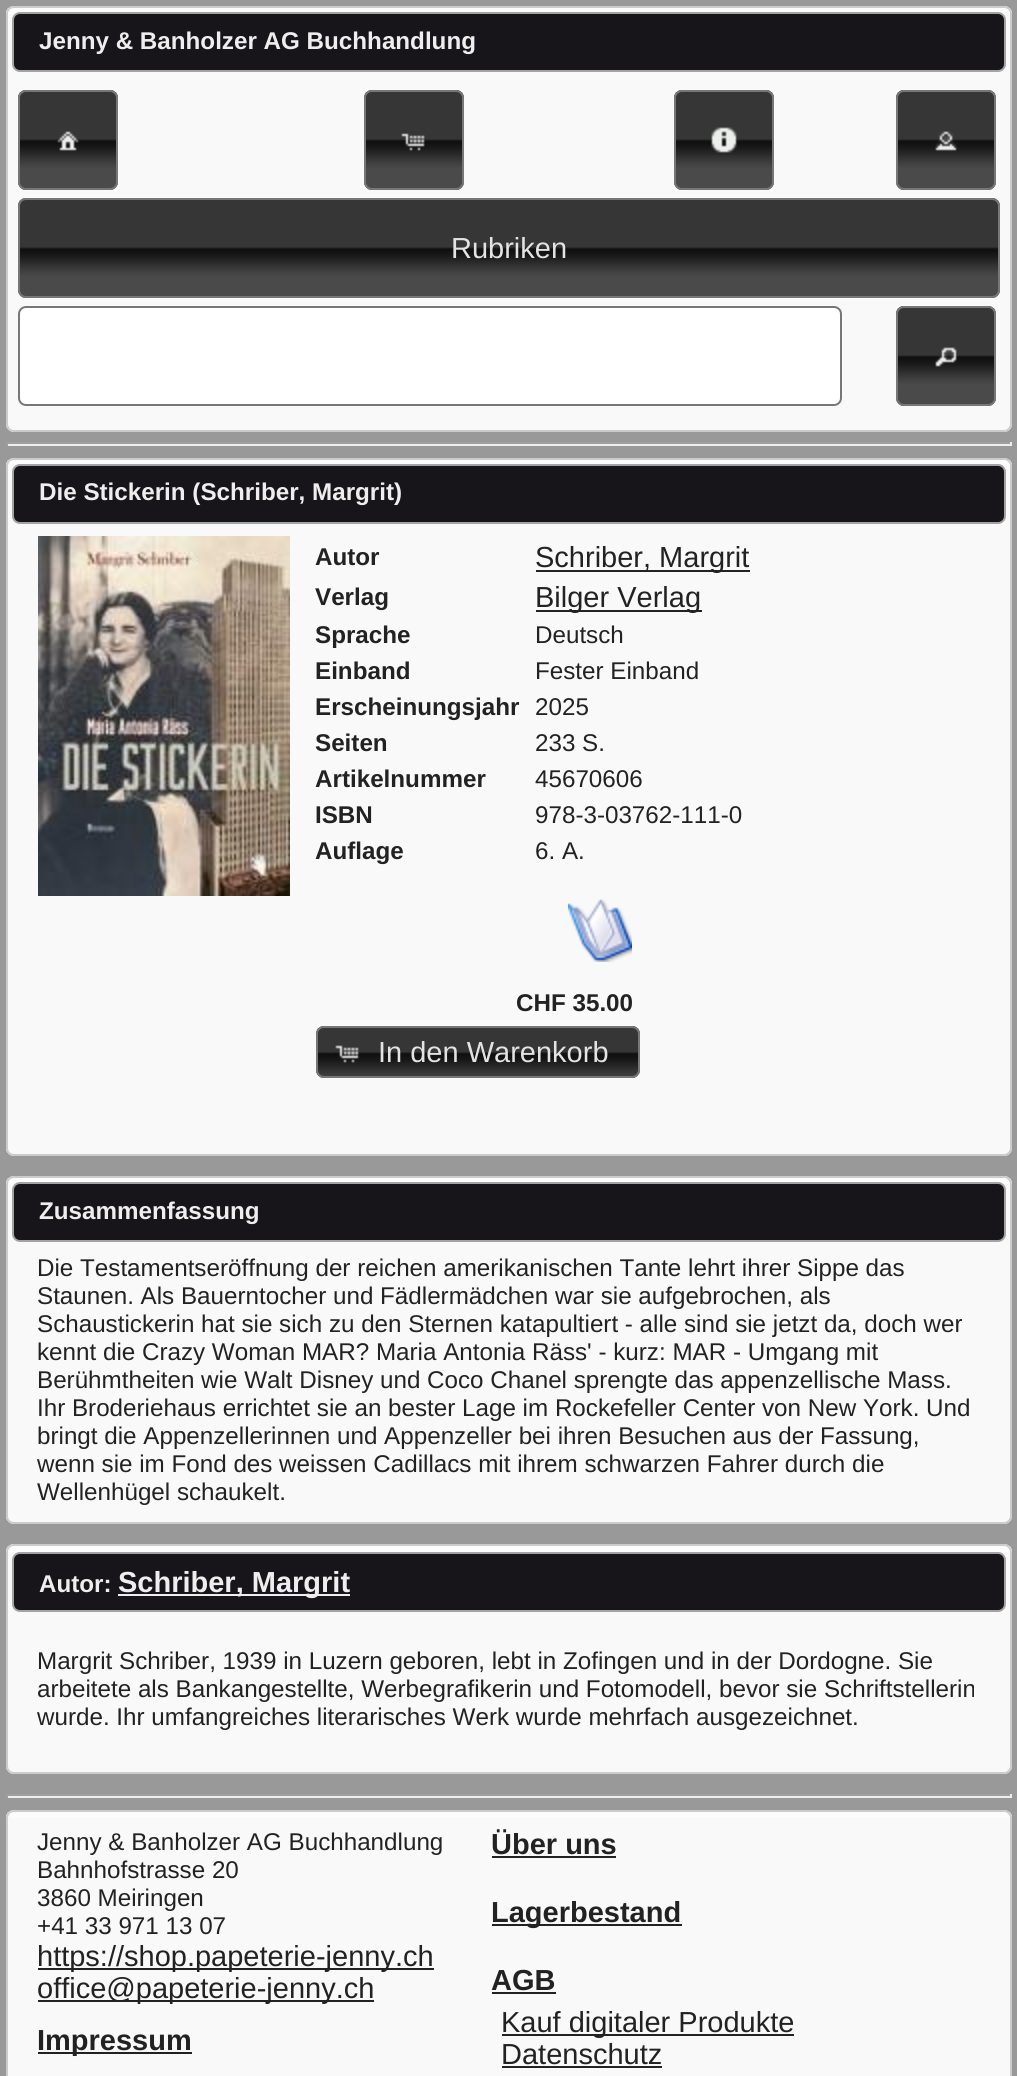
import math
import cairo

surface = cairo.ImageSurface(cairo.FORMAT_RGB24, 1017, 2076)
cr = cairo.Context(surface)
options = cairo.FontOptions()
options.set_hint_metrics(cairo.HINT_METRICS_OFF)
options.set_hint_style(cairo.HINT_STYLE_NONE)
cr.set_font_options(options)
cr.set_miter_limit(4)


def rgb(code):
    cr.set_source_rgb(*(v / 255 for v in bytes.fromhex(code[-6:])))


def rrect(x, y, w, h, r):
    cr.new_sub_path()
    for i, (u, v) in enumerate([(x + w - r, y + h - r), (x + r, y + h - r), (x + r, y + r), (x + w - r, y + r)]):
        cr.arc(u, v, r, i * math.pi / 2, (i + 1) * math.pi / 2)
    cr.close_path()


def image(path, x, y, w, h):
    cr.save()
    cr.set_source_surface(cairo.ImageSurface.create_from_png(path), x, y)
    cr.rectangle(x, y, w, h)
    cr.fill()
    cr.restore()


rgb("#999999")
cr.paint()
rgb("#f9f9f9")
rrect(6, 6, 1006, 426, 8)
cr.fill()
image("img/1.png", 6, 8, 1006, 6)
rrect(7, 7, 1004, 424, 7)
rgb("#cccccc")
cr.stroke()
rgb("#17151a")
rrect(13, 13, 992, 58, 7)
cr.fill_preserve()
rgb("#a3a3a3")
cr.stroke()
image("img/2.png", 18, 90, 100, 100)
rrect(19, 91, 98, 98, 7)
rgb("#777777")
cr.stroke()
image("img/3.png", 57, 131, 22, 20)
image("img/2.png", 364, 90, 100, 100)
rrect(365, 91, 98, 98, 7)
cr.stroke()
image("img/4.png", 401, 133, 24, 18)
image("img/2.png", 674, 90, 100, 100)
rrect(675, 91, 98, 98, 7)
cr.stroke()
image("img/5.png", 711, 127, 26, 26)
image("img/2.png", 896, 90, 100, 100)
rrect(897, 91, 98, 98, 7)
cr.stroke()
image("img/6.png", 935, 131, 22, 20)
image("img/7.png", 18, 198, 982, 100)
rrect(19, 199, 980, 98, 7)
cr.stroke()
rgb("#ffffff")
rrect(19, 307, 822, 98, 7)
cr.fill_preserve()
rgb("#777777")
cr.stroke()
image("img/2.png", 896, 306, 100, 100)
rrect(897, 307, 98, 98, 7)
cr.stroke()
image("img/8.png", 935, 347, 22, 20)
for x, y, w, h, color in [
    (6, 442, 1006, 2, "#9f9f9f"),
    (1010, 442, 2, 4, "#eeeeee"),
    (6, 444, 1006, 2, "#eeeeee"),
    (6, 442, 2, 4, "#9f9f9f"),
]:
    rgb(color)
    cr.rectangle(x, y, w, h)
    cr.fill()
rgb("#f9f9f9")
rrect(6, 458, 1006, 698, 8)
cr.fill()
image("img/1.png", 6, 460, 1006, 6)
rrect(7, 459, 1004, 696, 7)
rgb("#cccccc")
cr.stroke()
rgb("#17151a")
rrect(13, 465, 992, 58, 7)
cr.fill_preserve()
rgb("#a3a3a3")
cr.stroke()
image("img/9.png", 38, 536, 252, 360)
rgb("#222222")
cr.rectangle(536, 570, 214, 2)
cr.fill()
cr.rectangle(536, 610, 166, 2)
cr.fill()
image("img/10.png", 568, 899, 64, 63)
image("img/11.png", 316, 1026, 324, 52)
rrect(317, 1027, 322, 50, 7)
rgb("#777777")
cr.stroke()
image("img/12.png", 335, 1045, 24, 18)
rgb("#f9f9f9")
rrect(6, 1176, 1006, 348, 8)
cr.fill()
image("img/1.png", 6, 1178, 1006, 6)
rrect(7, 1177, 1004, 346, 7)
rgb("#cccccc")
cr.stroke()
rgb("#17151a")
rrect(13, 1183, 992, 58, 7)
cr.fill_preserve()
rgb("#a3a3a3")
cr.stroke()
rgb("#f9f9f9")
rrect(6, 1544, 1006, 230, 8)
cr.fill()
image("img/1.png", 6, 1546, 1006, 6)
rrect(7, 1545, 1004, 228, 7)
rgb("#cccccc")
cr.stroke()
rgb("#17151a")
rrect(13, 1553, 992, 58, 7)
cr.fill_preserve()
rgb("#a3a3a3")
cr.stroke()
for x, y, w, h, color in [
    (118, 1594, 232, 2, "#eeeeee"),
    (6, 1794, 1006, 2, "#9f9f9f"),
    (1010, 1794, 2, 4, "#eeeeee"),
    (6, 1796, 1006, 2, "#eeeeee"),
    (6, 1794, 2, 4, "#9f9f9f"),
]:
    rgb(color)
    cr.rectangle(x, y, w, h)
    cr.fill()
rgb("#f9f9f9")
rrect(6, 1810, 1006, 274, 8)
cr.fill()
image("img/1.png", 6, 1812, 1006, 6)
rrect(7, 1811, 1004, 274, 7)
rgb("#cccccc")
cr.stroke()
for x, y, w, h, color in [
    (38, 1968, 396, 2, "#222222"),
    (38, 2000, 336, 2, "#222222"),
    (492, 1856, 124, 2, "#222222"),
    (492, 1924, 190, 2, "#222222"),
    (38, 2052, 154, 2, "#222222"),
    (492, 1992, 64, 2, "#222222"),
    (502, 2034, 292, 2, "#222222"),
    (502, 2066, 160, 2, "#222222"),
]:
    rgb(color)
    cr.rectangle(x, y, w, h)
    cr.fill()
cr.select_font_face("Liberation Sans", cairo.FONT_SLANT_NORMAL, cairo.FONT_WEIGHT_BOLD)
cr.set_font_size(24.2)
rgb("#eeeeee")
cr.move_to(39, 49)
cr.show_text("Jenny & Banholzer AG Buchhandlung")
cr.select_font_face("Liberation Sans")
cr.set_font_size(29)
rgb("#e3e3e3")
cr.move_to(451, 258)
cr.show_text("Rubriken")
cr.select_font_face("Liberation Sans", cairo.FONT_SLANT_NORMAL, cairo.FONT_WEIGHT_BOLD)
cr.set_font_size(24.2)
rgb("#eeeeee")
cr.move_to(39, 500)
cr.show_text("Die Stickerin (Schriber, Margrit)")
rgb("#222222")
cr.move_to(315, 565)
cr.show_text("Autor")
cr.select_font_face("Liberation Sans")
cr.set_font_size(29)
cr.move_to(535, 567)
cr.show_text("Schriber, Margrit")
cr.select_font_face("Liberation Sans", cairo.FONT_SLANT_NORMAL, cairo.FONT_WEIGHT_BOLD)
cr.set_font_size(24.2)
cr.move_to(315, 605)
cr.show_text("Verlag")
cr.select_font_face("Liberation Sans")
cr.set_font_size(29)
cr.move_to(535, 607)
cr.show_text("Bilger Verlag")
cr.select_font_face("Liberation Sans", cairo.FONT_SLANT_NORMAL, cairo.FONT_WEIGHT_BOLD)
cr.set_font_size(24.2)
cr.move_to(315, 643)
cr.show_text("Sprache")
cr.select_font_face("Liberation Sans")
cr.move_to(535, 643)
cr.show_text("Deutsch")
cr.select_font_face("Liberation Sans", cairo.FONT_SLANT_NORMAL, cairo.FONT_WEIGHT_BOLD)
cr.move_to(315, 679)
cr.show_text("Einband")
cr.select_font_face("Liberation Sans")
cr.move_to(535, 679)
cr.show_text("Fester Einband")
cr.select_font_face("Liberation Sans", cairo.FONT_SLANT_NORMAL, cairo.FONT_WEIGHT_BOLD)
cr.move_to(315, 715)
cr.show_text("Erscheinungsjahr")
cr.select_font_face("Liberation Sans")
cr.move_to(535, 715)
cr.show_text("2025")
cr.select_font_face("Liberation Sans", cairo.FONT_SLANT_NORMAL, cairo.FONT_WEIGHT_BOLD)
cr.move_to(315, 751)
cr.show_text("Seiten")
cr.select_font_face("Liberation Sans")
cr.move_to(535, 751)
cr.show_text("233 S.")
cr.select_font_face("Liberation Sans", cairo.FONT_SLANT_NORMAL, cairo.FONT_WEIGHT_BOLD)
cr.move_to(315, 787)
cr.show_text("Artikelnummer")
cr.select_font_face("Liberation Sans")
cr.move_to(535, 787)
cr.show_text("45670606")
cr.select_font_face("Liberation Sans", cairo.FONT_SLANT_NORMAL, cairo.FONT_WEIGHT_BOLD)
cr.move_to(315, 823)
cr.show_text("ISBN")
cr.select_font_face("Liberation Sans")
cr.move_to(535, 823)
cr.show_text("978-3-03762-111-0")
cr.select_font_face("Liberation Sans", cairo.FONT_SLANT_NORMAL, cairo.FONT_WEIGHT_BOLD)
cr.move_to(315, 859)
cr.show_text("Auflage")
cr.select_font_face("Liberation Sans")
cr.move_to(535, 859)
cr.show_text("6. A.")
cr.select_font_face("Liberation Sans", cairo.FONT_SLANT_NORMAL, cairo.FONT_WEIGHT_BOLD)
cr.move_to(516, 1011)
cr.show_text("CHF 35.00")
cr.select_font_face("Liberation Sans")
cr.set_font_size(29)
rgb("#e3e3e3")
cr.move_to(378, 1062)
cr.show_text("In den Warenkorb")
cr.select_font_face("Liberation Sans", cairo.FONT_SLANT_NORMAL, cairo.FONT_WEIGHT_BOLD)
cr.set_font_size(24.2)
rgb("#eeeeee")
cr.move_to(39, 1219)
cr.show_text("Zusammenfassung")
cr.select_font_face("Liberation Sans")
rgb("#222222")
for x, y, s in [
    (37, 1276, "Die Testamentseröffnung der reichen amerikanischen Tante lehrt ihrer Sippe das"),
    (37, 1304, "Staunen. Als Bauerntocher und Fädlermädchen war sie aufgebrochen, als"),
    (37, 1332, "Schaustickerin hat sie sich zu den Sternen katapultiert - alle sind sie jetzt da, doch wer"),
    (37, 1360, "kennt die Crazy Woman MAR? Maria Antonia Räss' - kurz: MAR - Umgang mit"),
    (37, 1388, "Berühmtheiten wie Walt Disney und Coco Chanel sprengte das appenzellische Mass."),
    (37, 1416, "Ihr Broderiehaus errichtet sie an bester Lage im Rockefeller Center von New York. Und"),
    (37, 1444, "bringt die Appenzellerinnen und Appenzeller bei ihren Besuchen aus der Fassung,"),
    (37, 1472, "wenn sie im Fond des weissen Cadillacs mit ihrem schwarzen Fahrer durch die"),
    (37, 1500, "Wellenhügel schaukelt."),
]:
    cr.move_to(x, y)
    cr.show_text(s)
cr.select_font_face("Liberation Sans", cairo.FONT_SLANT_NORMAL, cairo.FONT_WEIGHT_BOLD)
rgb("#eeeeee")
cr.move_to(39, 1592)
cr.show_text("Autor:")
cr.set_font_size(29)
cr.move_to(118, 1592)
cr.show_text("Schriber, Margrit")
cr.select_font_face("Liberation Sans")
cr.set_font_size(24.2)
rgb("#222222")
for x, y, s in [
    (37, 1669, "Margrit Schriber, 1939 in Luzern geboren, lebt in Zofingen und in der Dordogne. Sie"),
    (37, 1697, "arbeitete als Bankangestellte, Werbegrafikerin und Fotomodell, bevor sie Schriftstellerin"),
    (37, 1725, "wurde. Ihr umfangreiches literarisches Werk wurde mehrfach ausgezeichnet."),
    (37, 1850, "Jenny & Banholzer AG Buchhandlung"),
    (37, 1878, "Bahnhofstrasse 20"),
    (37, 1906, "3860 Meiringen"),
    (37, 1934, "+41 33 971 13 07"),
]:
    cr.move_to(x, y)
    cr.show_text(s)
cr.set_font_size(29)
cr.move_to(37, 1966)
cr.show_text("https://shop.papeterie-jenny.ch")
cr.move_to(37, 1998)
cr.show_text("office@papeterie-jenny.ch")
cr.select_font_face("Liberation Sans", cairo.FONT_SLANT_NORMAL, cairo.FONT_WEIGHT_BOLD)
for x, y, s in [
    (491, 1854, "Über uns"),
    (491, 1922, "Lagerbestand"),
    (37, 2050, "Impressum"),
    (491, 1990, "AGB"),
]:
    cr.move_to(x, y)
    cr.show_text(s)
cr.select_font_face("Liberation Sans")
cr.move_to(501, 2032)
cr.show_text("Kauf digitaler Produkte")
cr.move_to(501, 2064)
cr.show_text("Datenschutz")
surface.write_to_png("page.png")
